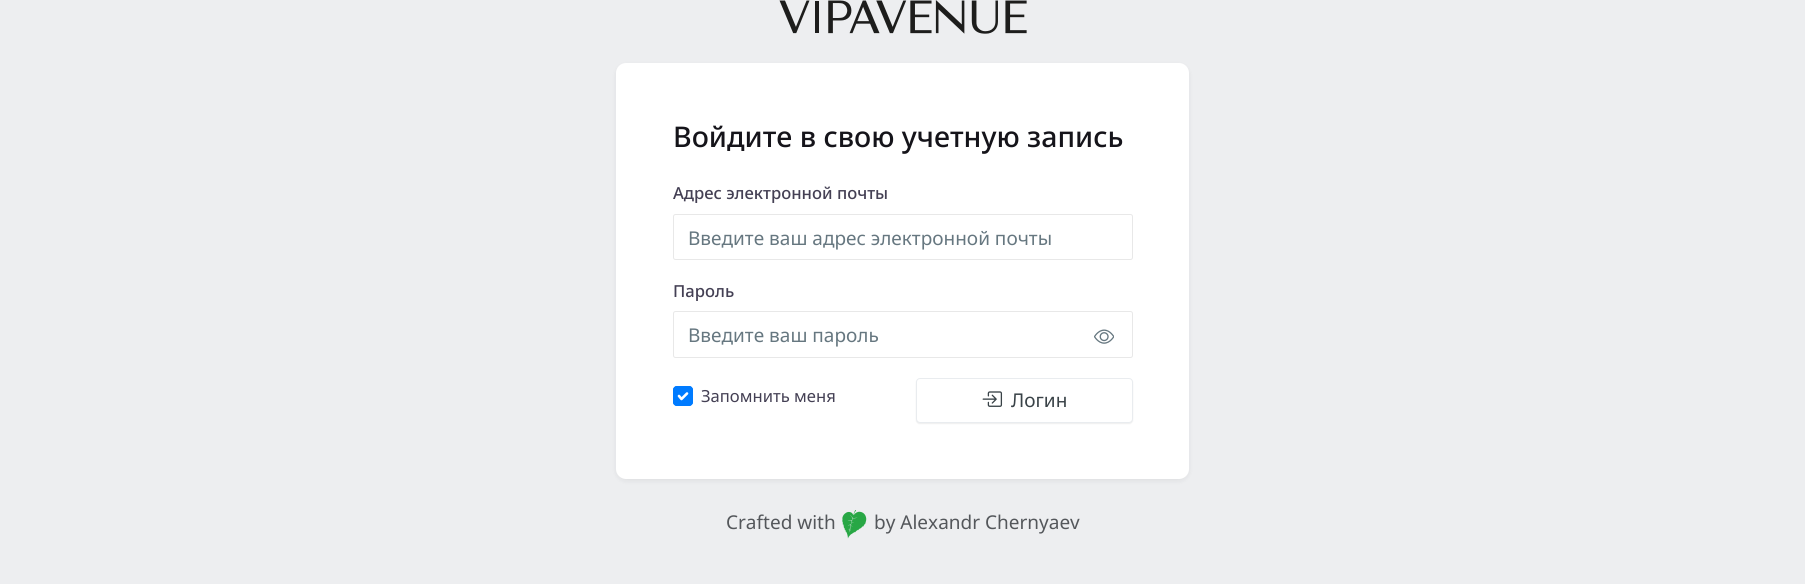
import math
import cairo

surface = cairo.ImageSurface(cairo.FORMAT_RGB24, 1805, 584)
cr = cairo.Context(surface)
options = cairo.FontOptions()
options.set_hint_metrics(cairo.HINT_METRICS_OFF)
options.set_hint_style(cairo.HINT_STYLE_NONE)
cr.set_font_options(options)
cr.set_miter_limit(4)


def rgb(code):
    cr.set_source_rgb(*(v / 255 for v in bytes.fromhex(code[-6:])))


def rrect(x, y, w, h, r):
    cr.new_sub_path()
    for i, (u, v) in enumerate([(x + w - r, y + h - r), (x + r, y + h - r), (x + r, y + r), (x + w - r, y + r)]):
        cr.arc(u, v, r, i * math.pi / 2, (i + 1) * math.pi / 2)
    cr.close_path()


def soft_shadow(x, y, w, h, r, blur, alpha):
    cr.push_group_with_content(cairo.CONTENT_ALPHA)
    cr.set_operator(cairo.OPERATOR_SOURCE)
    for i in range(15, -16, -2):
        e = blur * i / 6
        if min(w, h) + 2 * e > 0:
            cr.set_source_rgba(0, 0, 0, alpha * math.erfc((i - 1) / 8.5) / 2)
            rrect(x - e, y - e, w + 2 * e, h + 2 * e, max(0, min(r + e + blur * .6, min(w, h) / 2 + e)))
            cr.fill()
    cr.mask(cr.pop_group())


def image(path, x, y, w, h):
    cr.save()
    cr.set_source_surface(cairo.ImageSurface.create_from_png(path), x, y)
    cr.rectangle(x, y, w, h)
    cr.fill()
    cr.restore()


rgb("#edeef0")
cr.paint()
image("img/1.png", 779, 0, 248, 34)
rgb("#15141a")
soft_shadow(616, 65, 573, 416, 10, 2.5, 0.07)
rgb("#ffffff")
rrect(616, 63, 573, 416, 10)
cr.fill()
rrect(673.5, 214.5, 459, 45, 2)
rgb("#e8e8e8")
cr.set_line_width(1)
cr.stroke()
rrect(673.5, 311.5, 459, 46, 2)
cr.stroke()
image("img/2.png", 1094, 329, 20, 15)
rgb("#007bff")
rrect(673, 386, 20, 20, 4)
cr.fill()
cr.new_path()
cr.move_to(679, 396)
cr.line_to(681.5, 399)
cr.line_to(687, 393.5)
rgb("#ffffff")
cr.set_line_width(2.6)
cr.set_line_cap(cairo.LINE_CAP_ROUND)
cr.set_line_join(cairo.LINE_JOIN_ROUND)
cr.stroke()
rrect(673.5, 386.5, 19, 19, 3.5)
rgb("#007bff")
cr.set_line_width(1)
cr.set_line_cap(cairo.LINE_CAP_BUTT)
cr.set_line_join(cairo.LINE_JOIN_MITER)
cr.stroke()
rgb("#5a5a5a")
soft_shadow(916, 379, 217, 45, 4, 0.5, 0.1)
rgb("#ffffff")
rrect(916.5, 378.5, 216, 44, 3.5)
cr.fill_preserve()
rgb("#e9ecef")
cr.stroke()
image("img/3.png", 982, 391, 21, 16)
image("img/4.png", 842, 510, 25, 29)
cr.select_font_face("Noto Sans Medium")
cr.set_font_size(28.5)
rgb("#15141a")
cr.move_to(673, 147)
cr.show_text("Войдите в свою учетную запись")
cr.set_font_size(16.6)
rgb("#444054")
cr.move_to(673, 199)
cr.show_text("Адрес электронной почты")
cr.select_font_face("Noto Sans")
cr.set_font_size(19)
rgb("#667780")
cr.move_to(688, 245)
cr.show_text("Введите ваш адрес электронной почты")
cr.select_font_face("Noto Sans Medium")
cr.set_font_size(16.6)
rgb("#444054")
cr.move_to(673, 297)
cr.show_text("Пароль")
cr.select_font_face("Noto Sans")
cr.set_font_size(19)
rgb("#667780")
cr.move_to(688, 342)
cr.show_text("Введите ваш пароль")
cr.set_font_size(16.6)
rgb("#444054")
cr.move_to(701, 402)
cr.show_text("Запомнить меня")
cr.set_font_size(19)
rgb("#394247")
cr.move_to(1011, 407)
cr.show_text("Логин")
rgb("#54575b")
cr.move_to(726, 529)
cr.show_text("Crafted with")
cr.move_to(874, 529)
cr.show_text("by Alexandr Chernyaev")
surface.write_to_png("page.png")
